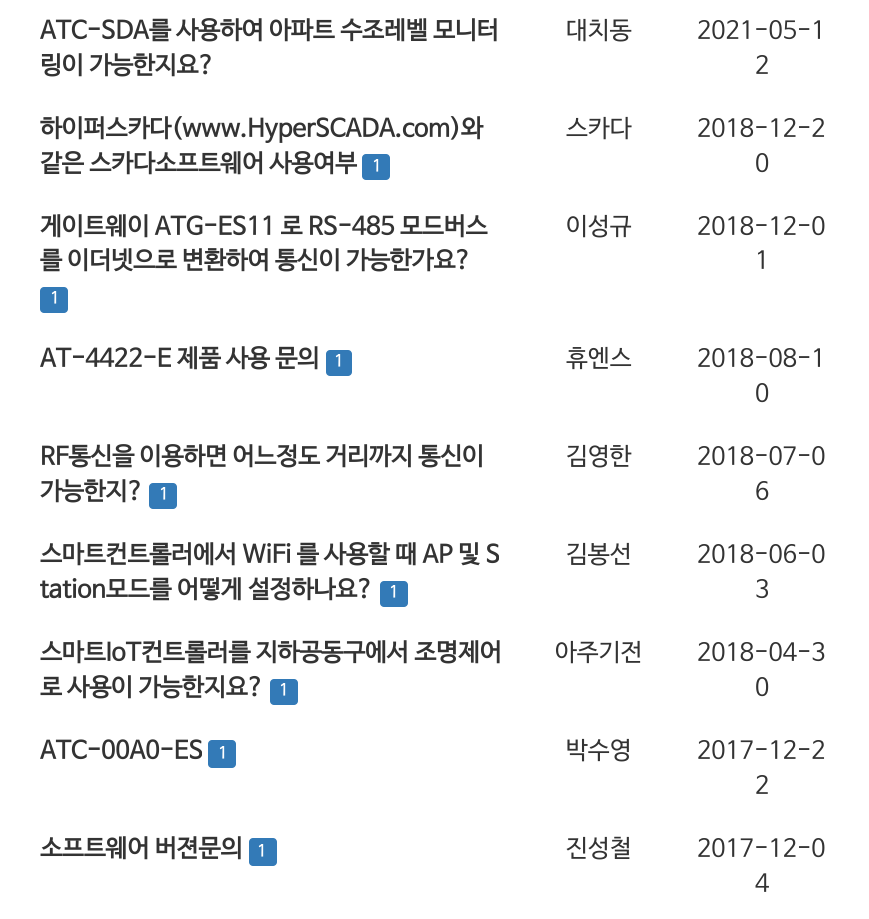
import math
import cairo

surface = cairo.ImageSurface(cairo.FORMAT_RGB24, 869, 919)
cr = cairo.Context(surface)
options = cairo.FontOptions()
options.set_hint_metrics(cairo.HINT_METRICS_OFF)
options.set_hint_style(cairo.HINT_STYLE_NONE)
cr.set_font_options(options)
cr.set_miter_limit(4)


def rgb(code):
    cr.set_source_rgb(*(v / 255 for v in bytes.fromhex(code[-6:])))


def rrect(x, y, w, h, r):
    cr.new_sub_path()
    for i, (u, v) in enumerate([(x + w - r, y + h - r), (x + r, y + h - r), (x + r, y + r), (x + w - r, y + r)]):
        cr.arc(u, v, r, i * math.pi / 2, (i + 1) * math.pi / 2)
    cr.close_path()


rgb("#ffffff")
cr.paint()
rgb("#337ab7")
rrect(362, 154, 28, 26, 4)
cr.fill()
rrect(40, 287, 28, 26, 4)
cr.fill()
rrect(326, 350, 26, 26, 4)
cr.fill()
rrect(149, 483, 28, 26, 4)
cr.fill()
rrect(380, 581, 28, 26, 4)
cr.fill()
rrect(270, 679, 28, 26, 4)
cr.fill()
rrect(208, 740, 28, 28, 4)
cr.fill()
rrect(249, 838, 28, 28, 4)
cr.fill()
cr.select_font_face("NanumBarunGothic", cairo.FONT_SLANT_NORMAL, cairo.FONT_WEIGHT_BOLD)
cr.set_font_size(24.5)
rgb("#333333")
cr.move_to(40, 38)
cr.show_text("ATC-SDA를 사용하여 아파트 수조레벨 모니터")
cr.move_to(40, 73)
cr.show_text("링이 가능한지요?")
cr.select_font_face("NanumBarunGothic")
for x, y, s in [
    (566, 38, "대치동"),
    (697, 38, "2021-05-1"),
    (755, 73, "2"),
]:
    cr.move_to(x, y)
    cr.show_text(s)
cr.select_font_face("NanumBarunGothic", cairo.FONT_SLANT_NORMAL, cairo.FONT_WEIGHT_BOLD)
cr.move_to(40, 136)
cr.show_text("하이퍼스카다(www.HyperSCADA.com)와")
cr.move_to(40, 171)
cr.show_text("같은 스카다소프트웨어 사용여부")
cr.set_font_size(16)
rgb("#ffffff")
cr.move_to(372, 171)
cr.show_text("1")
cr.select_font_face("NanumBarunGothic")
cr.set_font_size(24.5)
rgb("#333333")
for x, y, s in [
    (566, 136, "스카다"),
    (697, 136, "2018-12-2"),
    (755, 171, "0"),
]:
    cr.move_to(x, y)
    cr.show_text(s)
cr.select_font_face("NanumBarunGothic", cairo.FONT_SLANT_NORMAL, cairo.FONT_WEIGHT_BOLD)
cr.move_to(40, 234)
cr.show_text("게이트웨이 ATG-ES11 로 RS-485 모드버스")
cr.move_to(40, 268)
cr.show_text("를 이더넷으로 변환하여 통신이 가능한가요?")
cr.set_font_size(16)
rgb("#ffffff")
cr.move_to(50, 303)
cr.show_text("1")
cr.select_font_face("NanumBarunGothic")
cr.set_font_size(24.5)
rgb("#333333")
for x, y, s in [
    (566, 234, "이성규"),
    (697, 234, "2018-12-0"),
    (755, 268, "1"),
]:
    cr.move_to(x, y)
    cr.show_text(s)
cr.select_font_face("NanumBarunGothic", cairo.FONT_SLANT_NORMAL, cairo.FONT_WEIGHT_BOLD)
cr.move_to(40, 366)
cr.show_text("AT-4422-E 제품 사용 문의")
cr.set_font_size(16)
rgb("#ffffff")
cr.move_to(334, 366)
cr.show_text("1")
cr.select_font_face("NanumBarunGothic")
cr.set_font_size(24.5)
rgb("#333333")
for x, y, s in [
    (566, 366, "휴엔스"),
    (697, 366, "2018-08-1"),
    (755, 401, "0"),
]:
    cr.move_to(x, y)
    cr.show_text(s)
cr.select_font_face("NanumBarunGothic", cairo.FONT_SLANT_NORMAL, cairo.FONT_WEIGHT_BOLD)
cr.move_to(40, 464)
cr.show_text("RF통신을 이용하면 어느정도 거리까지 통신이")
cr.move_to(40, 499)
cr.show_text("가능한지?")
cr.set_font_size(16)
rgb("#ffffff")
cr.move_to(159, 499)
cr.show_text("1")
cr.select_font_face("NanumBarunGothic")
cr.set_font_size(24.5)
rgb("#333333")
for x, y, s in [
    (566, 464, "김영한"),
    (697, 464, "2018-07-0"),
    (755, 499, "6"),
]:
    cr.move_to(x, y)
    cr.show_text(s)
cr.select_font_face("NanumBarunGothic", cairo.FONT_SLANT_NORMAL, cairo.FONT_WEIGHT_BOLD)
cr.move_to(40, 562)
cr.show_text("스마트컨트롤러에서 WiFi 를 사용할 때 AP 및 S")
cr.move_to(40, 597)
cr.show_text("tation모드를 어떻게 설정하나요?")
cr.set_font_size(16)
rgb("#ffffff")
cr.move_to(389, 597)
cr.show_text("1")
cr.select_font_face("NanumBarunGothic")
cr.set_font_size(24.5)
rgb("#333333")
for x, y, s in [
    (566, 562, "김봉선"),
    (697, 562, "2018-06-0"),
    (755, 597, "3"),
]:
    cr.move_to(x, y)
    cr.show_text(s)
cr.select_font_face("NanumBarunGothic", cairo.FONT_SLANT_NORMAL, cairo.FONT_WEIGHT_BOLD)
cr.move_to(40, 660)
cr.show_text("스마트IoT컨트롤러를 지하공동구에서 조명제어")
cr.move_to(40, 695)
cr.show_text("로 사용이 가능한지요?")
cr.set_font_size(16)
rgb("#ffffff")
cr.move_to(279, 695)
cr.show_text("1")
cr.select_font_face("NanumBarunGothic")
cr.set_font_size(24.5)
rgb("#333333")
for x, y, s in [
    (555, 660, "아주기전"),
    (697, 660, "2018-04-3"),
    (755, 695, "0"),
]:
    cr.move_to(x, y)
    cr.show_text(s)
cr.select_font_face("NanumBarunGothic", cairo.FONT_SLANT_NORMAL, cairo.FONT_WEIGHT_BOLD)
cr.move_to(40, 758)
cr.show_text("ATC-00A0-ES")
cr.set_font_size(16)
rgb("#ffffff")
cr.move_to(218, 758)
cr.show_text("1")
cr.select_font_face("NanumBarunGothic")
cr.set_font_size(24.5)
rgb("#333333")
for x, y, s in [
    (566, 758, "박수영"),
    (697, 758, "2017-12-2"),
    (755, 793, "2"),
]:
    cr.move_to(x, y)
    cr.show_text(s)
cr.select_font_face("NanumBarunGothic", cairo.FONT_SLANT_NORMAL, cairo.FONT_WEIGHT_BOLD)
cr.move_to(40, 856)
cr.show_text("소프트웨어 버젼문의")
cr.set_font_size(16)
rgb("#ffffff")
cr.move_to(257, 856)
cr.show_text("1")
cr.select_font_face("NanumBarunGothic")
cr.set_font_size(24.5)
rgb("#333333")
for x, y, s in [
    (566, 856, "진성철"),
    (697, 856, "2017-12-0"),
    (755, 891, "4"),
]:
    cr.move_to(x, y)
    cr.show_text(s)
surface.write_to_png("page.png")
